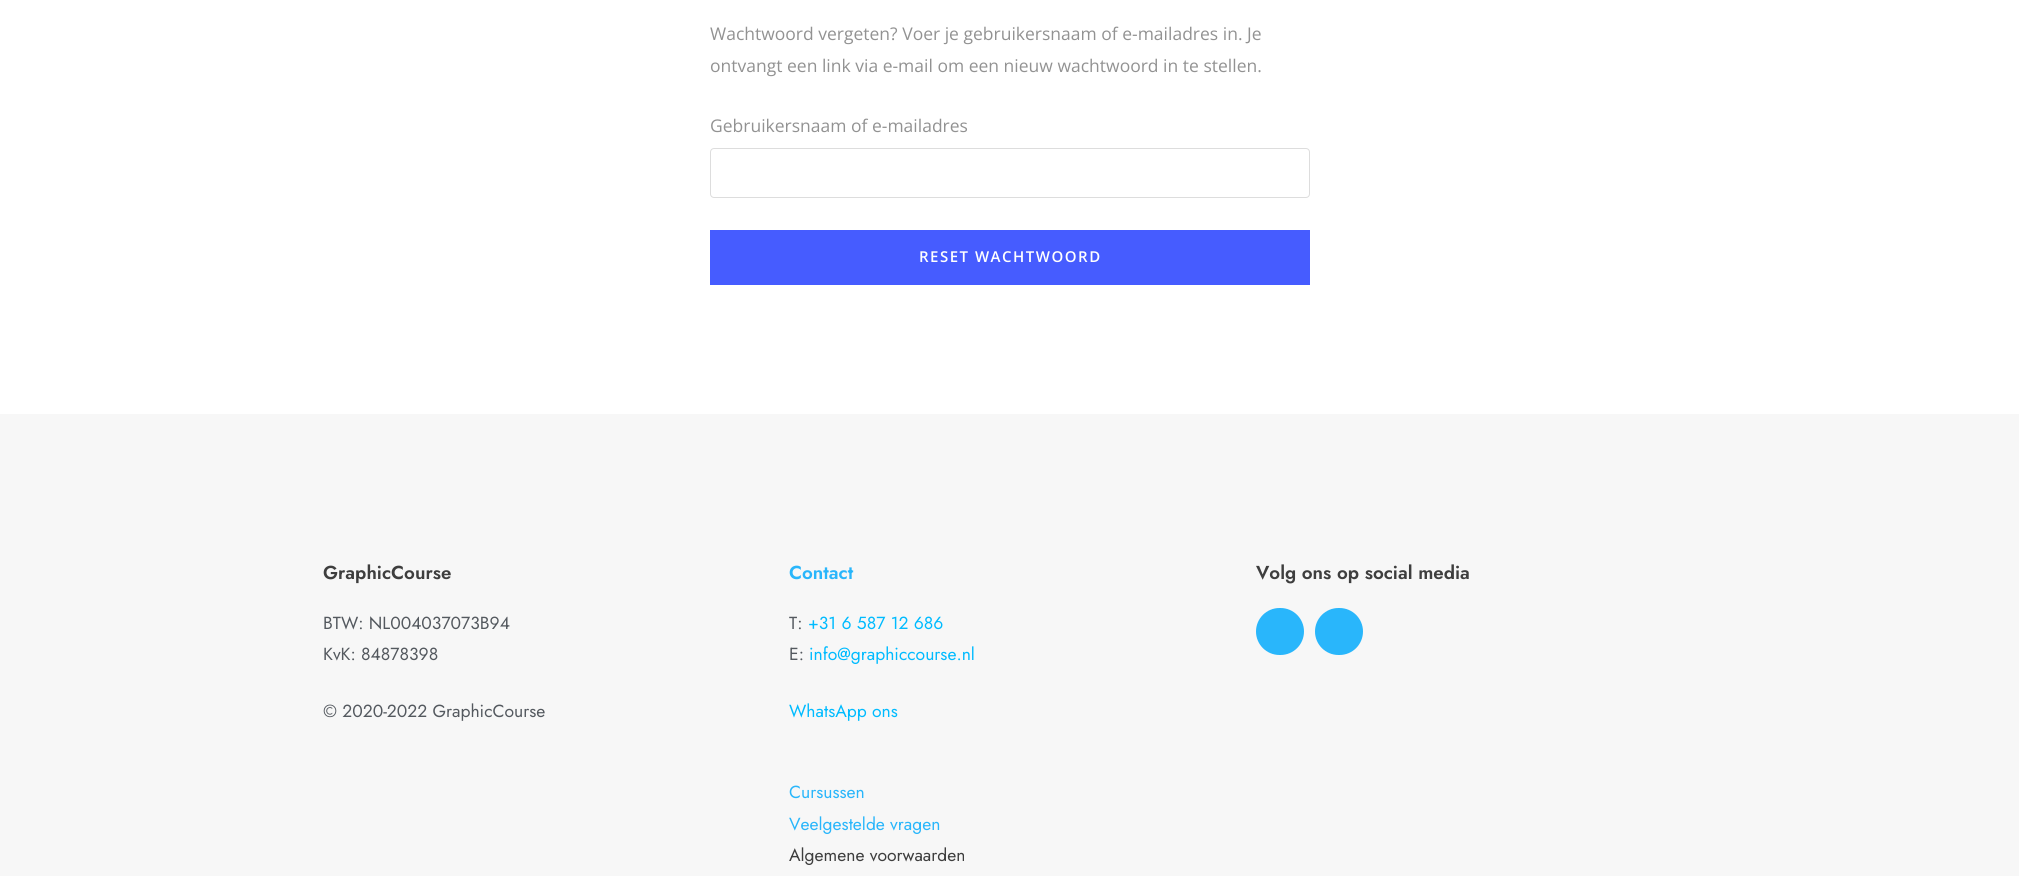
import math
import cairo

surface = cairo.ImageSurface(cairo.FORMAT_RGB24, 2019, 876)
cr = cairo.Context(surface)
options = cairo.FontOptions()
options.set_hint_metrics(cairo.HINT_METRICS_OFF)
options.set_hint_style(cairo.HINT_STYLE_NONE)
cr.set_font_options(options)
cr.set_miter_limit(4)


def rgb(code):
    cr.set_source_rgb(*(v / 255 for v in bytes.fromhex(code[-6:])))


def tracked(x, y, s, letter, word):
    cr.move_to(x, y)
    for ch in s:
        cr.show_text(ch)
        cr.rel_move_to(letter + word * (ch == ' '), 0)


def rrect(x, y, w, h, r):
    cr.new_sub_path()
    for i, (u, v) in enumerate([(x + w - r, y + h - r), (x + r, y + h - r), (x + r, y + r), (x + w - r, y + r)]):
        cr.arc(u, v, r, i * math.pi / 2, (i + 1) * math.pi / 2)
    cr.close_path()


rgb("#ffffff")
cr.paint()
rrect(710.5, 148.5, 599, 49, 3.5)
rgb("#dddddd")
cr.set_line_width(1)
cr.stroke()
rgb("#465cff")
cr.rectangle(710, 230, 600, 55)
cr.fill()
rgb("#f7f7f7")
cr.rectangle(0, 414, 2019, 462)
cr.fill()
rgb("#29b6fb")
rrect(1256, 608, 48, 47, 23.5)
cr.fill()
rrect(1315, 608, 48, 47, 23.5)
cr.fill()
cr.select_font_face("Open Sans")
cr.set_font_size(17.5)
rgb("#929292")
for x, y, s in [
    (710, 40, "Wachtwoord vergeten? Voer je gebruikersnaam of e-mailadres in. Je"),
    (710, 72, "ontvangt een link via e-mail om een nieuw wachtwoord in te stellen."),
    (710, 132, "Gebruikersnaam of e-mailadres"),
]:
    cr.move_to(x, y)
    cr.show_text(s)
cr.select_font_face("Open Sans SemiBold")
cr.set_font_size(15)
rgb("#ffffff")
tracked(919, 262, "RESET WACHTWOORD", 1.5, 0)
cr.select_font_face("Jost SemiBold")
cr.set_font_size(18.75)
rgb("#3e3e3e")
cr.move_to(323, 579)
cr.show_text("GraphicCourse")
cr.select_font_face("Jost")
cr.set_font_size(17.5)
rgb("#54595f")
for x, y, s in [
    (323, 629, "BTW: NL004037073B94"),
    (323, 660, "KvK: 84878398"),
    (323, 717, "© 2020-2022 GraphicCourse"),
]:
    cr.move_to(x, y)
    cr.show_text(s)
cr.select_font_face("Jost SemiBold")
cr.set_font_size(18.75)
rgb("#29b6fb")
cr.move_to(789, 579)
cr.show_text("Contact")
cr.select_font_face("Jost")
cr.set_font_size(17.5)
rgb("#54595f")
cr.move_to(789, 629)
cr.show_text("T:")
rgb("#00bbff")
cr.move_to(808, 629)
cr.show_text("+31 6 587 12 686")
rgb("#54595f")
cr.move_to(789, 660)
cr.show_text("E:")
rgb("#00bbff")
cr.move_to(809, 660)
cr.show_text("info@graphiccourse.nl")
cr.move_to(789, 717)
cr.show_text("WhatsApp ons")
rgb("#29b6fb")
cr.move_to(789, 798)
cr.show_text("Cursussen")
cr.move_to(789, 830)
cr.show_text("Veelgestelde vragen")
rgb("#3e3e3e")
cr.move_to(789, 861)
cr.show_text("Algemene voorwaarden")
cr.select_font_face("Jost SemiBold")
cr.set_font_size(18.75)
cr.move_to(1256, 579)
cr.show_text("Volg ons op social media")
surface.write_to_png("page.png")
